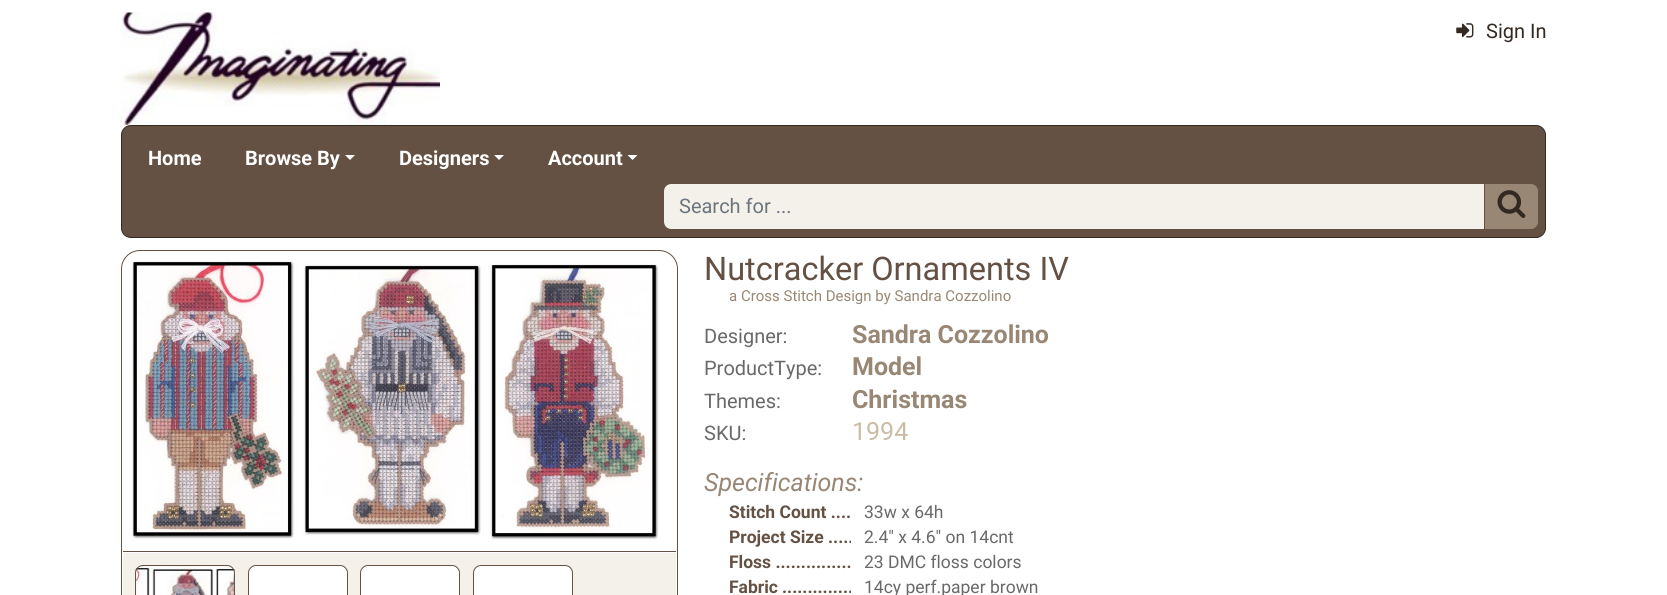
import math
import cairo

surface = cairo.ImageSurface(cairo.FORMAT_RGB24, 1667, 595)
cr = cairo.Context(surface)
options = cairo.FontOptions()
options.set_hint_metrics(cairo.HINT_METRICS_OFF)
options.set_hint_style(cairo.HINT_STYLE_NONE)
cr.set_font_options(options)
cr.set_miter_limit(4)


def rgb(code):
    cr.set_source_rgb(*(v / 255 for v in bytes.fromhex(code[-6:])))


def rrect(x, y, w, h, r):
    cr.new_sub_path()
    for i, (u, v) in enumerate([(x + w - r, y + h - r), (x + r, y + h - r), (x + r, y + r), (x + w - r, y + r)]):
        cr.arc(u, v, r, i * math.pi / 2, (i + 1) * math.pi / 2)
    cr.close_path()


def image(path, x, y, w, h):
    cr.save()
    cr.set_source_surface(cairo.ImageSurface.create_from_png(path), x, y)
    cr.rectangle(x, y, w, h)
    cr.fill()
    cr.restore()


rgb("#ffffff")
cr.paint()
image("img/1.png", 121, 12, 319, 113)
image("img/2.png", 1456, 23, 18, 15)
rgb("#645143")
rrect(121.5, 125.5, 1424, 112, 9.5)
cr.fill_preserve()
rgb("#322922")
cr.set_line_width(1)
cr.stroke()
rgb("#ffffff")
cr.new_path()
cr.move_to(345, 155)
cr.line_to(355, 155)
cr.line_to(350, 160)
cr.close_path()
cr.fill()
cr.new_path()
cr.move_to(494, 155)
cr.line_to(504, 155)
cr.line_to(499, 160)
cr.close_path()
cr.fill()
cr.new_path()
cr.move_to(627.5, 155)
cr.line_to(637.5, 155)
cr.line_to(632.5, 160)
cr.close_path()
cr.fill()
rgb("#f4f1ea")
cr.new_path()
cr.move_to(670, 184)
cr.line_to(1484, 184)
cr.line_to(1484, 229)
cr.line_to(670, 229)
cr.curve_to(666.5, 229, 664, 226.5, 664, 223)
cr.line_to(664, 190)
cr.curve_to(664, 186.5, 666.5, 184, 670, 184)
cr.close_path()
cr.fill()
cr.new_path()
cr.move_to(671, 183.5)
cr.line_to(1484.5, 183.5)
cr.line_to(1484.5, 229.5)
cr.line_to(671, 229.5)
cr.curve_to(667, 229.5, 663.5, 226, 663.5, 222)
cr.line_to(663.5, 191)
cr.curve_to(663.5, 187, 667, 183.5, 671, 183.5)
cr.close_path()
rgb("#645143")
cr.stroke()
rgb("#988774")
cr.new_path()
cr.move_to(1484.5, 183.5)
cr.line_to(1531, 183.5)
cr.curve_to(1535, 183.5, 1538.5, 187, 1538.5, 191)
cr.line_to(1538.5, 222)
cr.curve_to(1538.5, 226, 1535, 229.5, 1531, 229.5)
cr.line_to(1484.5, 229.5)
cr.close_path()
cr.fill_preserve()
rgb("#645143")
cr.stroke()
image("img/3.png", 1497, 190, 29, 28)
rrect(121.5, 250.5, 556, 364, 18.5)
cr.stroke()
image("img/4.png", 132, 257, 527, 283)
rgb("#f4f1ea")
cr.rectangle(123, 553, 553, 42)
cr.fill()
rgb("#645143")
cr.rectangle(123, 551, 553, 1)
cr.fill()
image("img/5.png", 135, 566, 100, 29)
rrect(135.5, 565.5, 99, 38, 7.5)
cr.stroke()
rgb("#ffffff")
rrect(248.5, 565.5, 99, 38, 7.5)
cr.fill_preserve()
rgb("#645143")
cr.stroke()
rgb("#ffffff")
rrect(360.5, 565.5, 99, 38, 7.5)
cr.fill_preserve()
rgb("#645143")
cr.stroke()
rgb("#ffffff")
rrect(473.5, 565.5, 99, 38, 7.5)
cr.fill_preserve()
rgb("#645143")
cr.stroke()
cr.select_font_face("Roboto")
cr.set_font_size(20)
rgb("#322922")
cr.move_to(1486, 38)
cr.show_text("Sign In")
cr.select_font_face("Roboto", cairo.FONT_SLANT_NORMAL, cairo.FONT_WEIGHT_BOLD)
rgb("#ffffff")
for x, y, s in [
    (148, 165, "Home"),
    (245, 165, "Browse By"),
    (399, 165, "Designers"),
    (548, 165, "Account"),
]:
    cr.move_to(x, y)
    cr.show_text(s)
cr.select_font_face("Roboto")
rgb("#6c757d")
cr.move_to(679, 213)
cr.show_text("Search for ...")
cr.set_font_size(32.5)
rgb("#645143")
cr.move_to(704, 280)
cr.show_text("Nutcracker Ornaments IV")
cr.set_font_size(15)
rgb("#988774")
cr.move_to(729, 301)
cr.show_text("a Cross Stitch Design by Sandra Cozzolino")
cr.set_font_size(20)
rgb("#696969")
cr.move_to(704, 343)
cr.show_text("Designer:")
cr.select_font_face("Roboto", cairo.FONT_SLANT_NORMAL, cairo.FONT_WEIGHT_BOLD)
cr.set_font_size(25)
rgb("#988774")
cr.move_to(852, 343)
cr.show_text("Sandra Cozzolino")
cr.select_font_face("Roboto")
cr.set_font_size(20)
rgb("#696969")
cr.move_to(704, 375)
cr.show_text("ProductType:")
cr.select_font_face("Roboto", cairo.FONT_SLANT_NORMAL, cairo.FONT_WEIGHT_BOLD)
cr.set_font_size(25)
rgb("#988774")
cr.move_to(852, 375)
cr.show_text("Model")
cr.select_font_face("Roboto")
cr.set_font_size(20)
rgb("#696969")
cr.move_to(704, 408)
cr.show_text("Themes:")
cr.select_font_face("Roboto", cairo.FONT_SLANT_NORMAL, cairo.FONT_WEIGHT_BOLD)
cr.set_font_size(25)
rgb("#988774")
cr.move_to(852, 408)
cr.show_text("Christmas")
cr.select_font_face("Roboto")
cr.set_font_size(20)
rgb("#696969")
cr.move_to(704, 440)
cr.show_text("SKU:")
cr.set_font_size(25)
rgb("#cbbca4")
cr.move_to(852, 440)
cr.show_text("1994")
cr.select_font_face("Roboto", cairo.FONT_SLANT_ITALIC)
rgb("#988774")
cr.move_to(704, 491)
cr.show_text("Specifications:")
cr.select_font_face("Roboto", cairo.FONT_SLANT_NORMAL, cairo.FONT_WEIGHT_BOLD)
cr.set_font_size(17.5)
rgb("#645143")
cr.move_to(729, 518)
cr.show_text("Stitch Count ....")
cr.select_font_face("Roboto")
rgb("#696969")
cr.move_to(864, 518)
cr.show_text("33w x 64h")
cr.select_font_face("Roboto", cairo.FONT_SLANT_NORMAL, cairo.FONT_WEIGHT_BOLD)
rgb("#645143")
cr.move_to(729, 543)
cr.show_text("Project Size")
cr.save()
cr.rectangle(729, 525, 122, 23)
cr.clip()
cr.move_to(828, 543)
cr.show_text(".....")
cr.restore()
cr.select_font_face("Roboto")
rgb("#696969")
cr.move_to(864, 543)
cr.show_text("2.4\" x 4.6\" on 14cnt")
cr.select_font_face("Roboto", cairo.FONT_SLANT_NORMAL, cairo.FONT_WEIGHT_BOLD)
rgb("#645143")
cr.move_to(729, 568)
cr.show_text("Floss ...............")
cr.select_font_face("Roboto")
rgb("#696969")
cr.move_to(864, 568)
cr.show_text("23 DMC floss colors")
cr.select_font_face("Roboto", cairo.FONT_SLANT_NORMAL, cairo.FONT_WEIGHT_BOLD)
rgb("#645143")
cr.move_to(729, 593)
cr.show_text("Fabric")
cr.save()
cr.rectangle(729, 575, 122, 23)
cr.clip()
cr.move_to(782, 593)
cr.show_text("..............")
cr.restore()
cr.select_font_face("Roboto")
rgb("#696969")
cr.move_to(864, 593)
cr.show_text("14cy perf.paper brown")
surface.write_to_png("page.png")
